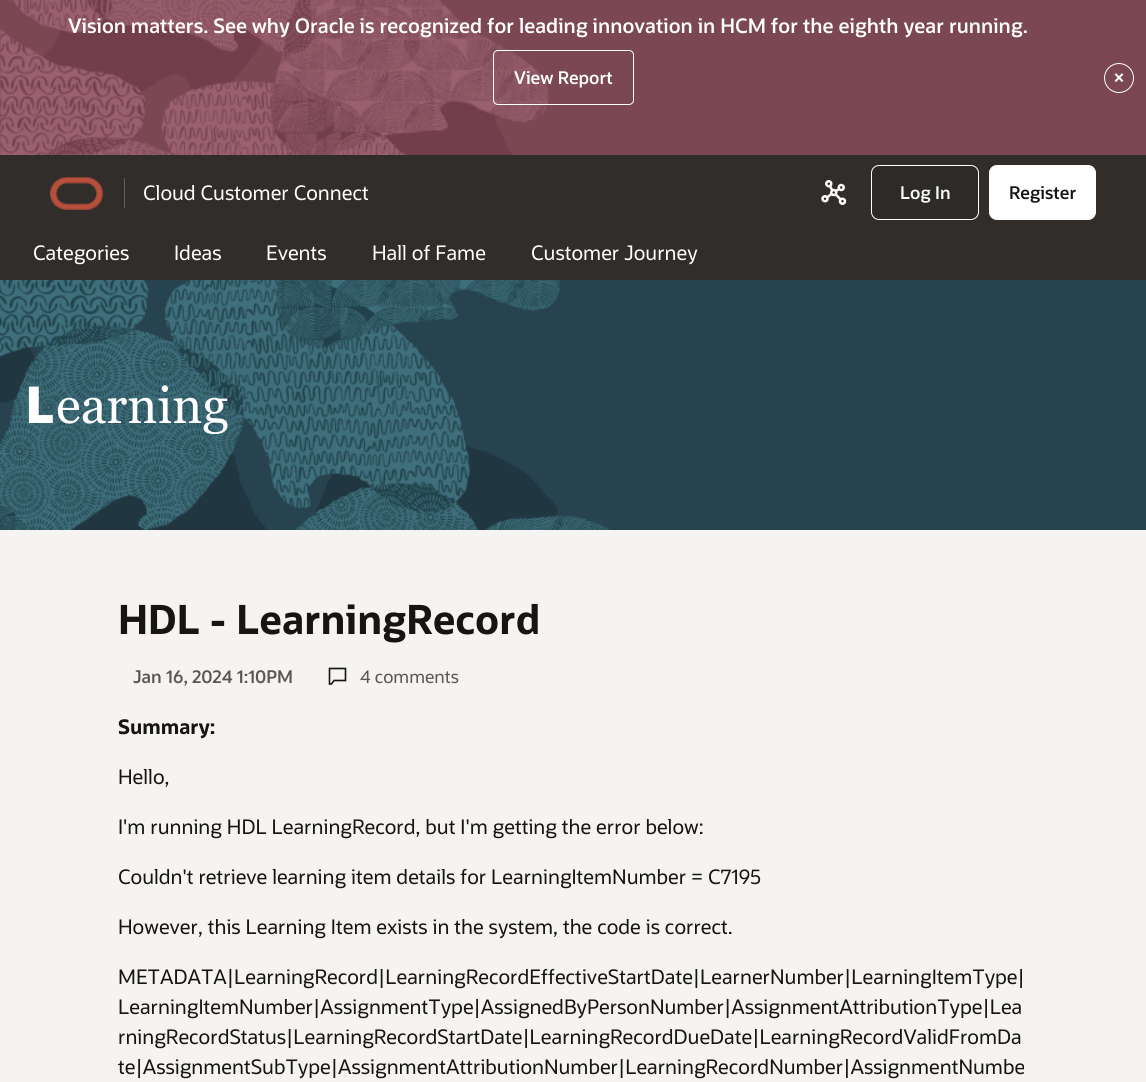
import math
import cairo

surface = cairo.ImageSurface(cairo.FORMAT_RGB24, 1146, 1082)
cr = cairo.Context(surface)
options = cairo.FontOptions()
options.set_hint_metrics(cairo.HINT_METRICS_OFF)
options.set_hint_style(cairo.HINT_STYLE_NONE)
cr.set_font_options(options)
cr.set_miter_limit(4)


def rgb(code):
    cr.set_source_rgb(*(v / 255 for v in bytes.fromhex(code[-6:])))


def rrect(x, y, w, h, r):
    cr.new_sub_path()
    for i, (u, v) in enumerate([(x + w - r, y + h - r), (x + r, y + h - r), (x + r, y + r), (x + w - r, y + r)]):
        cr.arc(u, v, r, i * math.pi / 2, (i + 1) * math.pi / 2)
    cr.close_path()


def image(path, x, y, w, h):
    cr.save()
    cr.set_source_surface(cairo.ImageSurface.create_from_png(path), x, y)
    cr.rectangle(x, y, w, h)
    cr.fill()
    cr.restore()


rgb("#f5f4f2")
cr.paint()
rgb("#7a4753")
cr.rectangle(549, 0, 597, 155)
cr.fill()
image("img/1.png", 0, 0, 549, 155)
rrect(493.5, 50.5, 140, 54, 4.5)
rgb("#ffffff")
cr.set_line_width(1)
cr.stroke()
cr.arc(1119, 78, 14.5, 0, 2 * math.pi)
cr.stroke()
rgb("#302d2a")
cr.rectangle(0, 155, 1146, 75)
cr.fill()
image("img/2.png", 50, 176, 54, 34)
rgb("#665f5b")
cr.rectangle(124, 178, 1, 30)
cr.fill()
image("img/3.png", 821, 180, 26, 25)
rgb("#2d2b28")
rrect(871.5, 165.5, 107, 54, 7.5)
cr.fill_preserve()
rgb("#ffffff")
cr.stroke()
rrect(989.5, 165.5, 106, 54, 7.5)
cr.fill_preserve()
cr.stroke()
rgb("#312d2a")
cr.rectangle(0, 230, 1146, 50)
cr.fill()
rgb("#284350")
cr.rectangle(610, 280, 536, 250)
cr.fill()
image("img/4.png", 0, 280, 610, 250)
cr.new_path()
cr.move_to(345.5, 668.5)
cr.line_to(329.5, 668.5)
cr.line_to(329.5, 684)
cr.line_to(331.5, 684)
cr.line_to(334, 680.5)
cr.line_to(345.5, 680.5)
cr.close_path()
rgb("#161513")
cr.set_line_width(1.6)
cr.stroke()
cr.select_font_face("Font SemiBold")
cr.set_font_size(20)
rgb("#ffffff")
cr.move_to(68, 33)
cr.show_text("Vision matters. See why Oracle is recognized for leading innovation in HCM for the eighth year running.")
cr.set_font_size(17.5)
cr.move_to(514, 84)
cr.show_text("View Report")
cr.set_font_size(20)
cr.move_to(1113, 85)
cr.show_text("×")
cr.select_font_face("Font")
cr.move_to(143, 200)
cr.show_text("Cloud Customer Connect")
cr.select_font_face("Font SemiBold")
cr.set_font_size(17.5)
cr.move_to(900, 199)
cr.show_text("Log In")
rgb("#161513")
cr.move_to(1009, 199)
cr.show_text("Register")
cr.select_font_face("Font")
cr.set_font_size(20)
rgb("#ffffff")
for x, y, s in [
    (33, 260, "Categories"),
    (174, 260, "Ideas"),
    (266, 260, "Events"),
    (372, 260, "Hall of Fame"),
    (531, 260, "Customer Journey"),
]:
    cr.move_to(x, y)
    cr.show_text(s)
cr.select_font_face("Noto Sans Black")
cr.set_font_size(51)
cr.move_to(25, 423)
cr.show_text("L")
cr.select_font_face("Georgia")
cr.move_to(56, 423)
cr.show_text("earning")
cr.select_font_face("Font", cairo.FONT_SLANT_NORMAL, cairo.FONT_WEIGHT_BOLD)
cr.set_font_size(40)
rgb("#161513")
cr.move_to(118, 634)
cr.show_text("HDL - LearningRecord")
cr.select_font_face("Font SemiBold")
cr.set_font_size(17.5)
rgb("#5b5652")
cr.move_to(133, 683)
cr.show_text("Jan 16, 2024 1:10PM")
cr.select_font_face("Font")
cr.move_to(360, 683)
cr.show_text("4 comments")
cr.select_font_face("Font", cairo.FONT_SLANT_NORMAL, cairo.FONT_WEIGHT_BOLD)
cr.set_font_size(20)
rgb("#161513")
cr.move_to(118, 734)
cr.show_text("Summary:")
cr.select_font_face("Font")
for x, y, s in [
    (118, 784, "Hello,"),
    (118, 834, "I'm running HDL LearningRecord, but I'm getting the error below:"),
    (118, 884, "Couldn't retrieve learning item details for LearningItemNumber = C7195"),
    (118, 934, "However, this Learning Item exists in the system, the code is correct."),
    (118, 984, "METADATA|LearningRecord|LearningRecordEffectiveStartDate|LearnerNumber|LearningItemType|"),
    (118, 1014, "LearningItemNumber|AssignmentType|AssignedByPersonNumber|AssignmentAttributionType|Lea"),
    (118, 1044, "rningRecordStatus|LearningRecordStartDate|LearningRecordDueDate|LearningRecordValidFromDa"),
    (118, 1074, "te|AssignmentSubType|AssignmentAttributionNumber|LearningRecordNumber|AssignmentNumbe"),
]:
    cr.move_to(x, y)
    cr.show_text(s)
surface.write_to_png("page.png")
